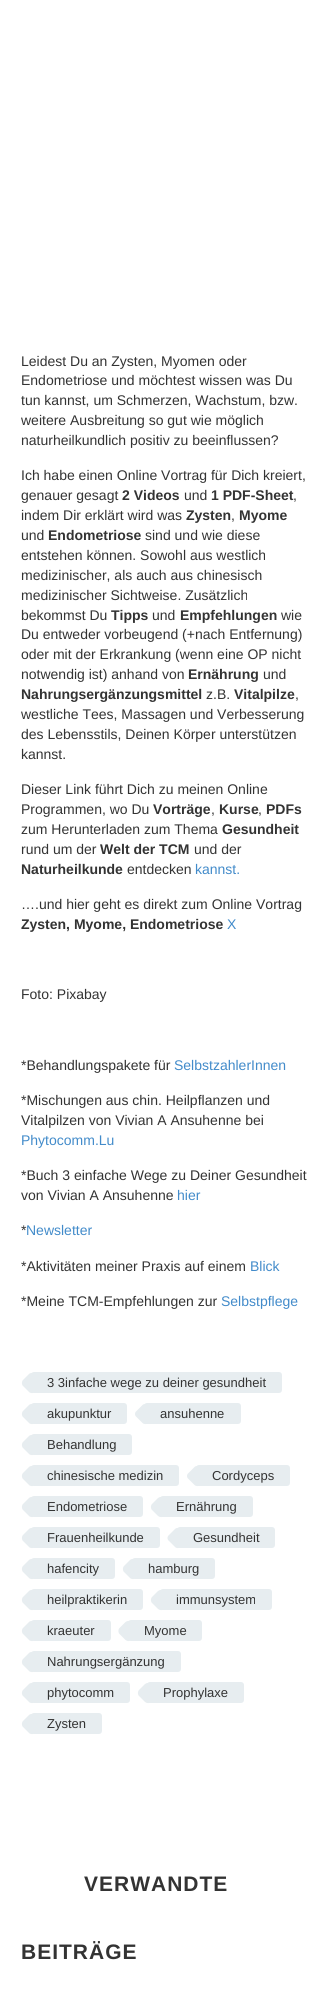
import math
import cairo

surface = cairo.ImageSurface(cairo.FORMAT_RGB24, 333, 2009)
cr = cairo.Context(surface)
options = cairo.FontOptions()
options.set_hint_metrics(cairo.HINT_METRICS_OFF)
options.set_hint_style(cairo.HINT_STYLE_NONE)
cr.set_font_options(options)
cr.set_miter_limit(4)


def rgb(code):
    cr.set_source_rgb(*(v / 255 for v in bytes.fromhex(code[-6:])))


def tracked(x, y, s, letter, word):
    cr.move_to(x, y)
    for ch in s:
        cr.show_text(ch)
        cr.rel_move_to(letter + word * (ch == ' '), 0)


def rrect(x, y, w, h, r):
    cr.new_sub_path()
    for i, (u, v) in enumerate([(x + w - r, y + h - r), (x + r, y + h - r), (x + r, y + r), (x + w - r, y + r)]):
        cr.arc(u, v, r, i * math.pi / 2, (i + 1) * math.pi / 2)
    cr.close_path()


rgb("#ffffff")
cr.paint()
rgb("#e7edf0")
rrect(31, 1372, 251, 21, 3)
cr.fill()
cr.new_path()
cr.move_to(35, 1374)
cr.line_to(41, 1380)
cr.curve_to(42.5, 1381.5, 42.5, 1384.5, 41, 1386)
cr.line_to(35, 1392)
cr.curve_to(33.5, 1393.5, 30.5, 1393.5, 29, 1392)
cr.line_to(23, 1386)
cr.curve_to(21.5, 1384.5, 21.5, 1381.5, 23, 1380)
cr.line_to(29, 1374)
cr.curve_to(30.5, 1372.5, 33.5, 1372.5, 35, 1374)
cr.close_path()
cr.fill()
rrect(31, 1403, 96, 21, 3)
cr.fill()
cr.new_path()
cr.move_to(35, 1405)
cr.line_to(41, 1411)
cr.curve_to(42.5, 1412.5, 42.5, 1415.5, 41, 1417)
cr.line_to(35, 1423)
cr.curve_to(33.5, 1424.5, 30.5, 1424.5, 29, 1423)
cr.line_to(23, 1417)
cr.curve_to(21.5, 1415.5, 21.5, 1412.5, 23, 1411)
cr.line_to(29, 1405)
cr.curve_to(30.5, 1403.5, 33.5, 1403.5, 35, 1405)
cr.close_path()
cr.fill()
rrect(144, 1403, 97, 21, 3)
cr.fill()
cr.new_path()
cr.move_to(148.5, 1405)
cr.line_to(154.5, 1411)
cr.curve_to(156, 1412.5, 156, 1415.5, 154.5, 1417)
cr.line_to(148.5, 1423)
cr.curve_to(146.5, 1424.5, 144, 1424.5, 142.5, 1423)
cr.line_to(136.5, 1417)
cr.curve_to(134.5, 1415.5, 134.5, 1412.5, 136.5, 1411)
cr.line_to(142.5, 1405)
cr.curve_to(144, 1403.5, 146.5, 1403.5, 148.5, 1405)
cr.close_path()
cr.fill()
rrect(31, 1434, 101, 21, 3)
cr.fill()
cr.new_path()
cr.move_to(35, 1436)
cr.line_to(41, 1442)
cr.curve_to(42.5, 1443.5, 42.5, 1446.5, 41, 1448)
cr.line_to(35, 1454)
cr.curve_to(33.5, 1455.5, 30.5, 1455.5, 29, 1454)
cr.line_to(23, 1448)
cr.curve_to(21.5, 1446.5, 21.5, 1443.5, 23, 1442)
cr.line_to(29, 1436)
cr.curve_to(30.5, 1434.5, 33.5, 1434.5, 35, 1436)
cr.close_path()
cr.fill()
rrect(31, 1465, 148, 21, 3)
cr.fill()
cr.new_path()
cr.move_to(35, 1467)
cr.line_to(41, 1473)
cr.curve_to(42.5, 1474.5, 42.5, 1477.5, 41, 1479)
cr.line_to(35, 1485)
cr.curve_to(33.5, 1486.5, 30.5, 1486.5, 29, 1485)
cr.line_to(23, 1479)
cr.curve_to(21.5, 1477.5, 21.5, 1474.5, 23, 1473)
cr.line_to(29, 1467)
cr.curve_to(30.5, 1465.5, 33.5, 1465.5, 35, 1467)
cr.close_path()
cr.fill()
rrect(196, 1465, 94, 21, 3)
cr.fill()
cr.new_path()
cr.move_to(200.5, 1467)
cr.line_to(206.5, 1473)
cr.curve_to(208, 1474.5, 208, 1477.5, 206.5, 1479)
cr.line_to(200.5, 1485)
cr.curve_to(198.5, 1486.5, 196, 1486.5, 194.5, 1485)
cr.line_to(188.5, 1479)
cr.curve_to(186.5, 1477.5, 186.5, 1474.5, 188.5, 1473)
cr.line_to(194.5, 1467)
cr.curve_to(196, 1465.5, 198.5, 1465.5, 200.5, 1467)
cr.close_path()
cr.fill()
rrect(31, 1496, 112, 21, 3)
cr.fill()
cr.new_path()
cr.move_to(35, 1498)
cr.line_to(41, 1504)
cr.curve_to(42.5, 1505.5, 42.5, 1508.5, 41, 1510)
cr.line_to(35, 1516)
cr.curve_to(33.5, 1517.5, 30.5, 1517.5, 29, 1516)
cr.line_to(23, 1510)
cr.curve_to(21.5, 1508.5, 21.5, 1505.5, 23, 1504)
cr.line_to(29, 1498)
cr.curve_to(30.5, 1496.5, 33.5, 1496.5, 35, 1498)
cr.close_path()
cr.fill()
rrect(160, 1496, 93, 21, 3)
cr.fill()
cr.new_path()
cr.move_to(164, 1498)
cr.line_to(170, 1504)
cr.curve_to(172, 1505.5, 172, 1508.5, 170, 1510)
cr.line_to(164, 1516)
cr.curve_to(162.5, 1517.5, 160, 1517.5, 158, 1516)
cr.line_to(152, 1510)
cr.curve_to(150.5, 1508.5, 150.5, 1505.5, 152, 1504)
cr.line_to(158, 1498)
cr.curve_to(160, 1496.5, 162.5, 1496.5, 164, 1498)
cr.close_path()
cr.fill()
rrect(31, 1527, 129, 21, 3)
cr.fill()
cr.new_path()
cr.move_to(35, 1529)
cr.line_to(41, 1535)
cr.curve_to(42.5, 1536.5, 42.5, 1539.5, 41, 1541)
cr.line_to(35, 1547)
cr.curve_to(33.5, 1548.5, 30.5, 1548.5, 29, 1547)
cr.line_to(23, 1541)
cr.curve_to(21.5, 1539.5, 21.5, 1536.5, 23, 1535)
cr.line_to(29, 1529)
cr.curve_to(30.5, 1527.5, 33.5, 1527.5, 35, 1529)
cr.close_path()
cr.fill()
rrect(177, 1527, 98, 21, 3)
cr.fill()
cr.new_path()
cr.move_to(181, 1529)
cr.line_to(187, 1535)
cr.curve_to(188.5, 1536.5, 188.5, 1539.5, 187, 1541)
cr.line_to(181, 1547)
cr.curve_to(179, 1548.5, 176.5, 1548.5, 175, 1547)
cr.line_to(169, 1541)
cr.curve_to(167, 1539.5, 167, 1536.5, 169, 1535)
cr.line_to(175, 1529)
cr.curve_to(176.5, 1527.5, 179, 1527.5, 181, 1529)
cr.close_path()
cr.fill()
rrect(31, 1558, 84, 21, 3)
cr.fill()
cr.new_path()
cr.move_to(35, 1560)
cr.line_to(41, 1566)
cr.curve_to(42.5, 1567.5, 42.5, 1570.5, 41, 1572)
cr.line_to(35, 1578)
cr.curve_to(33.5, 1579.5, 30.5, 1579.5, 29, 1578)
cr.line_to(23, 1572)
cr.curve_to(21.5, 1570.5, 21.5, 1567.5, 23, 1566)
cr.line_to(29, 1560)
cr.curve_to(30.5, 1558.5, 33.5, 1558.5, 35, 1560)
cr.close_path()
cr.fill()
rrect(132, 1558, 83, 21, 3)
cr.fill()
cr.new_path()
cr.move_to(136, 1560)
cr.line_to(142, 1566)
cr.curve_to(143.5, 1567.5, 143.5, 1570.5, 142, 1572)
cr.line_to(136, 1578)
cr.curve_to(134.5, 1579.5, 131.5, 1579.5, 130, 1578)
cr.line_to(124, 1572)
cr.curve_to(122.5, 1570.5, 122.5, 1567.5, 124, 1566)
cr.line_to(130, 1560)
cr.curve_to(131.5, 1558.5, 134.5, 1558.5, 136, 1560)
cr.close_path()
cr.fill()
rrect(31, 1589, 112, 21, 3)
cr.fill()
cr.new_path()
cr.move_to(35, 1591)
cr.line_to(41, 1597)
cr.curve_to(42.5, 1598.5, 42.5, 1601.5, 41, 1603)
cr.line_to(35, 1609)
cr.curve_to(33.5, 1610.5, 30.5, 1610.5, 29, 1609)
cr.line_to(23, 1603)
cr.curve_to(21.5, 1601.5, 21.5, 1598.5, 23, 1597)
cr.line_to(29, 1591)
cr.curve_to(30.5, 1589.5, 33.5, 1589.5, 35, 1591)
cr.close_path()
cr.fill()
rrect(160, 1589, 112, 21, 3)
cr.fill()
cr.new_path()
cr.move_to(164, 1591)
cr.line_to(170, 1597)
cr.curve_to(172, 1598.5, 172, 1601.5, 170, 1603)
cr.line_to(164, 1609)
cr.curve_to(162.5, 1610.5, 160, 1610.5, 158, 1609)
cr.line_to(152, 1603)
cr.curve_to(150.5, 1601.5, 150.5, 1598.5, 152, 1597)
cr.line_to(158, 1591)
cr.curve_to(160, 1589.5, 162.5, 1589.5, 164, 1591)
cr.close_path()
cr.fill()
rrect(31, 1620, 80, 21, 3)
cr.fill()
cr.new_path()
cr.move_to(35, 1622)
cr.line_to(41, 1628)
cr.curve_to(42.5, 1629.5, 42.5, 1632.5, 41, 1634)
cr.line_to(35, 1640)
cr.curve_to(33.5, 1641.5, 30.5, 1641.5, 29, 1640)
cr.line_to(23, 1634)
cr.curve_to(21.5, 1632.5, 21.5, 1629.5, 23, 1628)
cr.line_to(29, 1622)
cr.curve_to(30.5, 1620.5, 33.5, 1620.5, 35, 1622)
cr.close_path()
cr.fill()
rrect(128, 1620, 74, 21, 3)
cr.fill()
cr.new_path()
cr.move_to(131.5, 1622)
cr.line_to(137.5, 1628)
cr.curve_to(139.5, 1629.5, 139.5, 1632.5, 137.5, 1634)
cr.line_to(131.5, 1640)
cr.curve_to(130, 1641.5, 127.5, 1641.5, 125.5, 1640)
cr.line_to(119.5, 1634)
cr.curve_to(118, 1632.5, 118, 1629.5, 119.5, 1628)
cr.line_to(125.5, 1622)
cr.curve_to(127.5, 1620.5, 130, 1620.5, 131.5, 1622)
cr.close_path()
cr.fill()
rrect(31, 1651, 150, 21, 3)
cr.fill()
cr.new_path()
cr.move_to(35, 1653)
cr.line_to(41, 1659)
cr.curve_to(42.5, 1660.5, 42.5, 1663.5, 41, 1665)
cr.line_to(35, 1671)
cr.curve_to(33.5, 1672.5, 30.5, 1672.5, 29, 1671)
cr.line_to(23, 1665)
cr.curve_to(21.5, 1663.5, 21.5, 1660.5, 23, 1659)
cr.line_to(29, 1653)
cr.curve_to(30.5, 1651.5, 33.5, 1651.5, 35, 1653)
cr.close_path()
cr.fill()
rrect(31, 1682, 99, 21, 3)
cr.fill()
cr.new_path()
cr.move_to(35, 1684)
cr.line_to(41, 1690)
cr.curve_to(42.5, 1691.5, 42.5, 1694.5, 41, 1696)
cr.line_to(35, 1702)
cr.curve_to(33.5, 1703.5, 30.5, 1703.5, 29, 1702)
cr.line_to(23, 1696)
cr.curve_to(21.5, 1694.5, 21.5, 1691.5, 23, 1690)
cr.line_to(29, 1684)
cr.curve_to(30.5, 1682.5, 33.5, 1682.5, 35, 1684)
cr.close_path()
cr.fill()
rrect(147, 1682, 97, 21, 3)
cr.fill()
cr.new_path()
cr.move_to(151, 1684)
cr.line_to(157, 1690)
cr.curve_to(159, 1691.5, 159, 1694.5, 157, 1696)
cr.line_to(151, 1702)
cr.curve_to(149.5, 1703.5, 147, 1703.5, 145, 1702)
cr.line_to(139, 1696)
cr.curve_to(137.5, 1694.5, 137.5, 1691.5, 139, 1690)
cr.line_to(145, 1684)
cr.curve_to(147, 1682.5, 149.5, 1682.5, 151, 1684)
cr.close_path()
cr.fill()
rrect(31, 1713, 71, 21, 3)
cr.fill()
cr.new_path()
cr.move_to(35, 1715)
cr.line_to(41, 1721)
cr.curve_to(42.5, 1722.5, 42.5, 1725.5, 41, 1727)
cr.line_to(35, 1733)
cr.curve_to(33.5, 1734.5, 30.5, 1734.5, 29, 1733)
cr.line_to(23, 1727)
cr.curve_to(21.5, 1725.5, 21.5, 1722.5, 23, 1721)
cr.line_to(29, 1715)
cr.curve_to(30.5, 1713.5, 33.5, 1713.5, 35, 1715)
cr.close_path()
cr.fill()
cr.select_font_face("Liberation Sans")
cr.set_font_size(14)
rgb("#333333")
for x, y, s in [
    (21, 366, "Leidest Du an Zysten, Myomen oder"),
    (21, 385, "Endometriose und möchtest wissen was Du"),
    (21, 405, "tun kannst, um Schmerzen, Wachstum, bzw."),
    (21, 425, "weitere Ausbreitung so gut wie möglich"),
    (21, 445, "naturheilkundlich positiv zu beeinflussen?"),
    (21, 480, "Ich habe einen Online Vortrag für Dich kreiert,"),
    (21, 500, "genauer gesagt"),
]:
    cr.move_to(x, y)
    cr.show_text(s)
cr.select_font_face("Liberation Sans", cairo.FONT_SLANT_NORMAL, cairo.FONT_WEIGHT_BOLD)
cr.move_to(122, 500)
cr.show_text("2 Videos")
cr.select_font_face("Liberation Sans")
cr.move_to(184, 500)
cr.show_text("und")
cr.select_font_face("Liberation Sans", cairo.FONT_SLANT_NORMAL, cairo.FONT_WEIGHT_BOLD)
cr.move_to(211, 500)
cr.show_text("1 PDF-Sheet")
cr.select_font_face("Liberation Sans")
cr.move_to(293, 500)
cr.show_text(",")
cr.move_to(21, 520)
cr.show_text("indem Dir erklärt wird was")
cr.select_font_face("Liberation Sans", cairo.FONT_SLANT_NORMAL, cairo.FONT_WEIGHT_BOLD)
cr.move_to(186, 520)
cr.show_text("Zysten")
cr.select_font_face("Liberation Sans")
cr.move_to(231, 520)
cr.show_text(",")
cr.select_font_face("Liberation Sans", cairo.FONT_SLANT_NORMAL, cairo.FONT_WEIGHT_BOLD)
cr.move_to(239, 520)
cr.show_text("Myome")
cr.select_font_face("Liberation Sans")
cr.move_to(21, 540)
cr.show_text("und")
cr.select_font_face("Liberation Sans", cairo.FONT_SLANT_NORMAL, cairo.FONT_WEIGHT_BOLD)
cr.move_to(48, 540)
cr.show_text("Endometriose")
cr.select_font_face("Liberation Sans")
for x, y, s in [
    (145, 540, "sind und wie diese"),
    (21, 560, "entstehen können. Sowohl aus westlich"),
    (21, 580, "medizinischer, als auch aus chinesisch"),
    (21, 600, "medizinischer Sichtweise. Zusätzlich"),
    (21, 620, "bekommst Du"),
]:
    cr.move_to(x, y)
    cr.show_text(s)
cr.select_font_face("Liberation Sans", cairo.FONT_SLANT_NORMAL, cairo.FONT_WEIGHT_BOLD)
cr.move_to(111, 620)
cr.show_text("Tipps")
cr.select_font_face("Liberation Sans")
cr.move_to(152, 620)
cr.show_text("und")
cr.select_font_face("Liberation Sans", cairo.FONT_SLANT_NORMAL, cairo.FONT_WEIGHT_BOLD)
cr.move_to(180, 620)
cr.show_text("Empfehlungen")
cr.select_font_face("Liberation Sans")
for x, y, s in [
    (281, 620, "wie"),
    (21, 639, "Du entweder vorbeugend (+nach Entfernung)"),
    (21, 659, "oder mit der Erkrankung (wenn eine OP nicht"),
    (21, 679, "notwendig ist) anhand von"),
]:
    cr.move_to(x, y)
    cr.show_text(s)
cr.select_font_face("Liberation Sans", cairo.FONT_SLANT_NORMAL, cairo.FONT_WEIGHT_BOLD)
cr.move_to(188, 679)
cr.show_text("Ernährung")
cr.select_font_face("Liberation Sans")
cr.move_to(263, 679)
cr.show_text("und")
cr.select_font_face("Liberation Sans", cairo.FONT_SLANT_NORMAL, cairo.FONT_WEIGHT_BOLD)
cr.move_to(21, 699)
cr.show_text("Nahrungsergänzungsmittel")
cr.select_font_face("Liberation Sans")
cr.move_to(206, 699)
cr.show_text("z.B.")
cr.select_font_face("Liberation Sans", cairo.FONT_SLANT_NORMAL, cairo.FONT_WEIGHT_BOLD)
cr.move_to(234, 699)
cr.show_text("Vitalpilze")
cr.select_font_face("Liberation Sans")
for x, y, s in [
    (295, 699, ","),
    (21, 719, "westliche Tees, Massagen und Verbesserung"),
    (21, 739, "des Lebensstils, Deinen Körper unterstützen"),
    (21, 759, "kannst."),
    (21, 794, "Dieser Link führt Dich zu meinen Online"),
    (21, 814, "Programmen, wo Du"),
]:
    cr.move_to(x, y)
    cr.show_text(s)
cr.select_font_face("Liberation Sans", cairo.FONT_SLANT_NORMAL, cairo.FONT_WEIGHT_BOLD)
cr.move_to(153, 814)
cr.show_text("Vorträge")
cr.select_font_face("Liberation Sans")
cr.move_to(211, 814)
cr.show_text(",")
cr.select_font_face("Liberation Sans", cairo.FONT_SLANT_NORMAL, cairo.FONT_WEIGHT_BOLD)
cr.move_to(219, 814)
cr.show_text("Kurse")
cr.select_font_face("Liberation Sans")
cr.move_to(258, 814)
cr.show_text(",")
cr.select_font_face("Liberation Sans", cairo.FONT_SLANT_NORMAL, cairo.FONT_WEIGHT_BOLD)
cr.move_to(266, 814)
cr.show_text("PDFs")
cr.select_font_face("Liberation Sans")
cr.move_to(21, 834)
cr.show_text("zum Herunterladen zum Thema")
cr.select_font_face("Liberation Sans", cairo.FONT_SLANT_NORMAL, cairo.FONT_WEIGHT_BOLD)
cr.move_to(222, 834)
cr.show_text("Gesundheit")
cr.select_font_face("Liberation Sans")
cr.move_to(21, 854)
cr.show_text("rund um der")
cr.select_font_face("Liberation Sans", cairo.FONT_SLANT_NORMAL, cairo.FONT_WEIGHT_BOLD)
cr.move_to(100, 854)
cr.show_text("Welt der TCM")
cr.select_font_face("Liberation Sans")
cr.move_to(194, 854)
cr.show_text("und der")
cr.select_font_face("Liberation Sans", cairo.FONT_SLANT_NORMAL, cairo.FONT_WEIGHT_BOLD)
cr.move_to(21, 874)
cr.show_text("Naturheilkunde")
cr.select_font_face("Liberation Sans")
cr.move_to(127, 874)
cr.show_text("entdecken")
rgb("#428bca")
cr.move_to(195, 874)
cr.show_text("kannst.")
rgb("#333333")
cr.move_to(21, 909)
cr.show_text("….und hier geht es direkt zum Online Vortrag")
cr.select_font_face("Liberation Sans", cairo.FONT_SLANT_NORMAL, cairo.FONT_WEIGHT_BOLD)
cr.move_to(21, 929)
cr.show_text("Zysten, Myome, Endometriose")
cr.select_font_face("Liberation Sans")
rgb("#428bca")
cr.move_to(227, 929)
cr.show_text("X")
rgb("#333333")
cr.move_to(21, 999)
cr.show_text("Foto: Pixabay")
cr.move_to(21, 1070)
cr.show_text("*Behandlungspakete für")
rgb("#428bca")
cr.move_to(174, 1070)
cr.show_text("SelbstzahlerInnen")
rgb("#333333")
cr.move_to(21, 1105)
cr.show_text("*Mischungen aus chin. Heilpflanzen und")
cr.move_to(21, 1125)
cr.show_text("Vitalpilzen von Vivian A Ansuhenne bei")
rgb("#428bca")
cr.move_to(21, 1145)
cr.show_text("Phytocomm.Lu")
rgb("#333333")
cr.move_to(21, 1180)
cr.show_text("*Buch 3 einfache Wege zu Deiner Gesundheit")
cr.move_to(21, 1200)
cr.show_text("von Vivian A Ansuhenne")
rgb("#428bca")
cr.move_to(177, 1200)
cr.show_text("hier")
rgb("#333333")
cr.move_to(21, 1235)
cr.show_text("*")
rgb("#428bca")
cr.move_to(26, 1235)
cr.show_text("Newsletter")
rgb("#333333")
cr.move_to(21, 1271)
cr.show_text("*Aktivitäten meiner Praxis auf einem")
rgb("#428bca")
cr.move_to(250, 1271)
cr.show_text("Blick")
rgb("#333333")
cr.move_to(21, 1306)
cr.show_text("*Meine TCM-Empfehlungen zur")
rgb("#428bca")
cr.move_to(221, 1306)
cr.show_text("Selbstpflege")
cr.set_font_size(13)
rgb("#333333")
for x, y, s in [
    (47, 1387, "3 3infache wege zu deiner gesundheit"),
    (47, 1418, "akupunktur"),
    (160, 1418, "ansuhenne"),
    (47, 1449, "Behandlung"),
    (47, 1480, "chinesische medizin"),
    (212, 1480, "Cordyceps"),
    (47, 1511, "Endometriose"),
    (176, 1511, "Ernährung"),
    (47, 1542, "Frauenheilkunde"),
    (193, 1542, "Gesundheit"),
    (47, 1573, "hafencity"),
    (148, 1573, "hamburg"),
    (47, 1604, "heilpraktikerin"),
    (176, 1604, "immunsystem"),
    (47, 1635, "kraeuter"),
    (144, 1635, "Myome"),
    (47, 1666, "Nahrungsergänzung"),
    (47, 1697, "phytocomm"),
    (163, 1697, "Prophylaxe"),
    (47, 1728, "Zysten"),
]:
    cr.move_to(x, y)
    cr.show_text(s)
cr.select_font_face("Liberation Sans", cairo.FONT_SLANT_NORMAL, cairo.FONT_WEIGHT_BOLD)
cr.set_font_size(21)
tracked(84, 1891, "VERWANDTE", 1, 0)
tracked(21, 1959, "BEITRÄGE", 1, 0)
surface.write_to_png("page.png")
